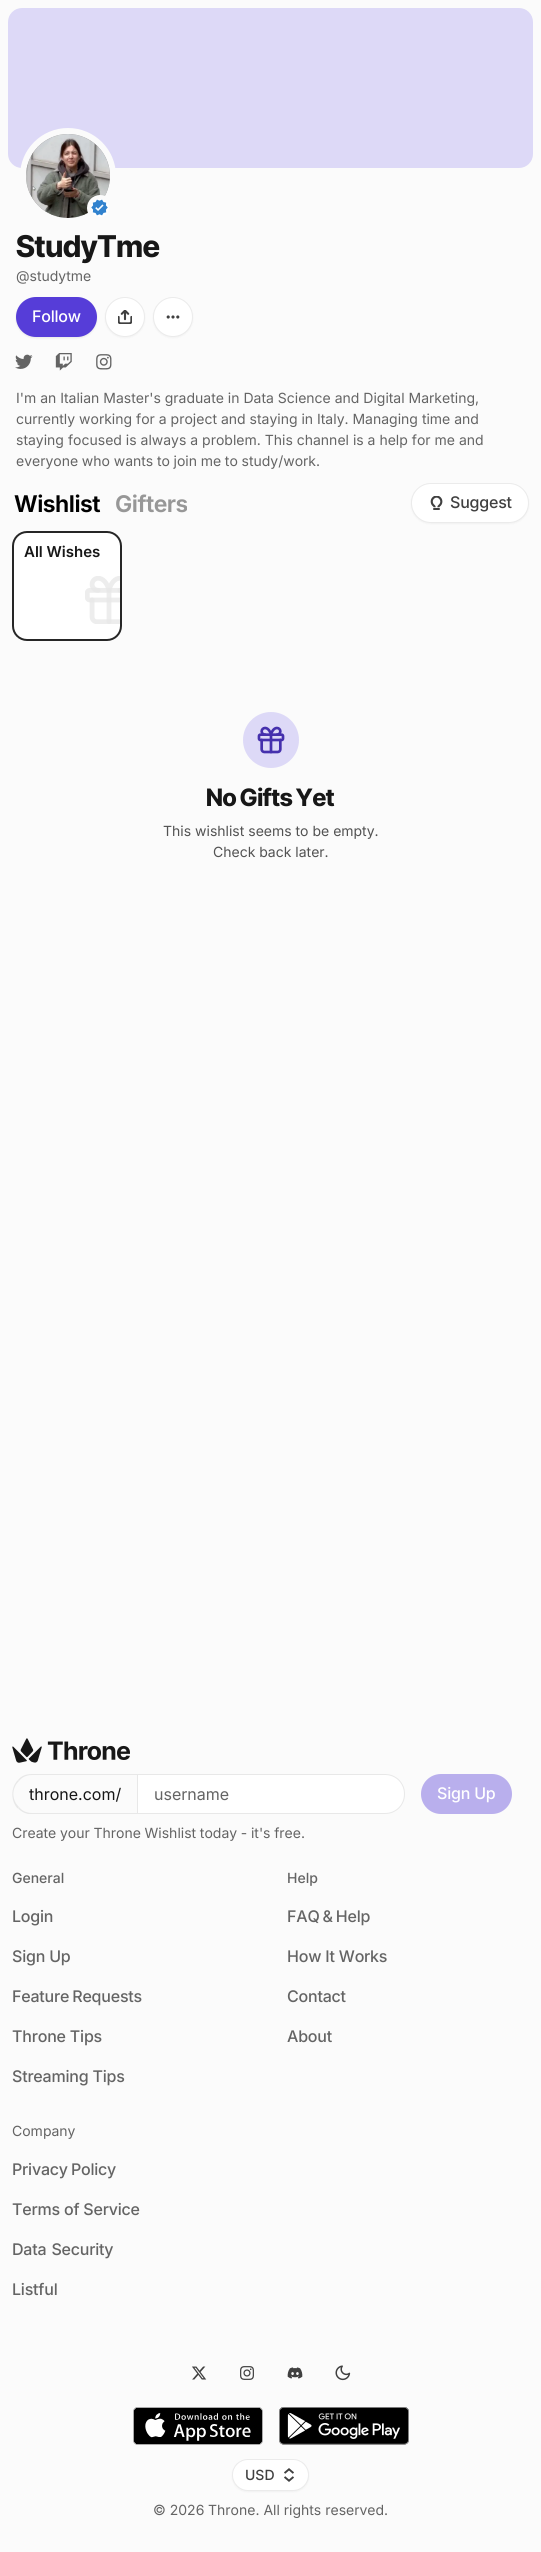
import math
import cairo

surface = cairo.ImageSurface(cairo.FORMAT_RGB24, 541, 2552)
cr = cairo.Context(surface)
options = cairo.FontOptions()
options.set_hint_metrics(cairo.HINT_METRICS_OFF)
options.set_hint_style(cairo.HINT_STYLE_NONE)
cr.set_font_options(options)
cr.set_miter_limit(4)


def rgb(code):
    cr.set_source_rgb(*(v / 255 for v in bytes.fromhex(code[-6:])))


def tracked(x, y, s, letter, word):
    cr.move_to(x, y)
    for ch in s:
        cr.show_text(ch)
        cr.rel_move_to(letter + word * (ch == ' '), 0)


def rrect(x, y, w, h, r):
    cr.new_sub_path()
    for i, (u, v) in enumerate([(x + w - r, y + h - r), (x + r, y + h - r), (x + r, y + r), (x + w - r, y + r)]):
        cr.arc(u, v, r, i * math.pi / 2, (i + 1) * math.pi / 2)
    cr.close_path()


def soft_shadow(x, y, w, h, r, blur, alpha):
    cr.push_group_with_content(cairo.CONTENT_ALPHA)
    cr.set_operator(cairo.OPERATOR_SOURCE)
    for i in range(15, -16, -2):
        e = blur * i / 6
        if min(w, h) + 2 * e > 0:
            cr.set_source_rgba(0, 0, 0, alpha * math.erfc((i - 1) / 8.5) / 2)
            rrect(x - e, y - e, w + 2 * e, h + 2 * e, max(0, min(r + e + blur * .6, min(w, h) / 2 + e)))
            cr.fill()
    cr.mask(cr.pop_group())


def image(path, x, y, w, h):
    cr.save()
    cr.set_source_surface(cairo.ImageSurface.create_from_png(path), x, y)
    cr.rectangle(x, y, w, h)
    cr.fill()
    cr.restore()


rgb("#fbfbfb")
cr.paint()
rgb("#ddd9f7")
rrect(8, 8, 525, 160, 14)
cr.fill()
rgb("#a3a3a3")
cr.arc(68, 176, 45, 0, 2 * math.pi)
cr.fill_preserve()
rgb("#fbfbfb")
cr.set_line_width(6)
cr.stroke()
image("img/1.png", 26, 134, 84, 84)
rgb("#ffffff")
cr.arc(100, 208, 11, 0, 2 * math.pi)
cr.fill_preserve()
rgb("#fbfbfb")
cr.set_line_width(4)
cr.stroke()
image("img/2.png", 91, 199, 17, 17)
rgb("#000000")
soft_shadow(16, 298, 81, 40, 20, 1, 0.08)
rgb("#563dd8")
rrect(16, 297, 81, 40, 20)
cr.fill()
rgb("#000000")
soft_shadow(105, 298, 40, 40, 20, 1, 0.04)
rgb("#ffffff")
cr.arc(125, 317, 20, 0, 2 * math.pi)
cr.fill()
cr.arc(125, 317, 19.5, 0, 2 * math.pi)
cr.set_source_rgba(0, 0, 0, 0.08)
cr.set_line_width(1)
cr.stroke()
image("img/3.png", 118, 310, 14, 14)
rgb("#000000")
soft_shadow(153, 298, 40, 40, 20, 1, 0.04)
rgb("#ffffff")
cr.arc(173, 317, 20, 0, 2 * math.pi)
cr.fill()
cr.arc(173, 317, 19.5, 0, 2 * math.pi)
cr.set_source_rgba(0, 0, 0, 0.08)
cr.stroke()
image("img/4.png", 166, 315, 14, 4)
image("img/5.png", 15, 354, 18, 15)
image("img/6.png", 55, 353, 17, 18)
image("img/7.png", 96, 354, 16, 16)
rgb("#000000")
soft_shadow(411, 484, 118, 40, 20, 1, 0.04)
rgb("#ffffff")
rrect(411, 483, 118, 40, 20)
cr.fill()
rrect(411.5, 483.5, 117, 39, 19.5)
cr.set_source_rgba(0, 0, 0, 0.08)
cr.stroke()
image("img/8.png", 430, 496, 13, 14)
rgb("#ffffff")
rrect(13, 532, 108, 108, 14)
cr.fill_preserve()
rgb("#262626")
cr.set_line_width(2)
cr.stroke()
image("img/9.png", 85, 576, 35, 48)
rgb("#ddd9f7")
cr.arc(271, 740, 28, 0, 2 * math.pi)
cr.fill()
image("img/10.png", 257, 726, 28, 28)
image("img/11.png", 12, 1738, 118, 25)
rgb("#e8e8e8")
cr.new_path()
cr.move_to(32, 1774)
cr.curve_to(26, 1774, 21, 1776, 18, 1780)
cr.line_to(19, 1781)
cr.curve_to(22, 1777, 27, 1775, 32, 1775)
cr.line_to(137, 1775)
cr.line_to(138, 1774)
cr.close_path()
cr.fill()
cr.new_path()
cr.move_to(138, 1814)
cr.line_to(137, 1813)
cr.line_to(32, 1813)
cr.curve_to(27, 1813, 22, 1811, 19, 1807)
cr.line_to(18, 1808)
cr.curve_to(20, 1811, 24, 1813, 28, 1814)
cr.close_path()
cr.fill()
cr.new_path()
cr.move_to(18, 1780)
cr.curve_to(10.5, 1787.5, 10.5, 1800.5, 17.5, 1808.5)
cr.line_to(19, 1807)
cr.curve_to(11.5, 1800, 11.5, 1788, 19, 1781)
cr.close_path()
cr.fill()
rgb("#ffffff")
cr.new_path()
cr.move_to(137.5, 1774.5)
cr.line_to(385, 1774.5)
cr.curve_to(396, 1774.5, 404.5, 1783, 404.5, 1794)
cr.curve_to(404.5, 1805, 396, 1813.5, 385, 1813.5)
cr.line_to(137.5, 1813.5)
cr.close_path()
cr.fill_preserve()
rgb("#e8e8e8")
cr.set_line_width(1)
cr.stroke()
rgb("#b9afed")
rrect(421, 1774, 91, 40, 20)
cr.fill()
image("img/12.png", 192, 2366, 15, 14)
image("img/13.png", 240, 2366, 14, 14)
image("img/14.png", 287, 2367, 16, 12)
image("img/15.png", 335, 2365, 16, 16)
image("img/16.png", 133, 2407, 130, 38)
image("img/17.png", 279, 2407, 130, 38)
rgb("#000000")
soft_shadow(232, 2460, 77, 32, 16, 1, 0.04)
rgb("#ffffff")
rrect(232, 2459, 77, 32, 16)
cr.fill()
rrect(232.5, 2459.5, 76, 31, 15.5)
cr.set_source_rgba(0, 0, 0, 0.08)
cr.stroke()
image("img/18.png", 284, 2468, 10, 14)
cr.select_font_face("Inter Tight", cairo.FONT_SLANT_NORMAL, cairo.FONT_WEIGHT_BOLD)
cr.set_font_size(30)
rgb("#171717")
tracked(16, 257, "StudyTme", -0.25, 0)
cr.select_font_face("Inter")
cr.set_font_size(14)
rgb("#646464")
cr.move_to(16, 281)
cr.show_text("@studytme")
cr.select_font_face("Inter Medium")
cr.set_font_size(16)
rgb("#ffffff")
tracked(32, 322, "Follow", -0.2, 0)
cr.select_font_face("Inter")
cr.set_font_size(14)
rgb("#646464")
for x, y, s in [
    (16, 403, "I'm an Italian Master's graduate in Data Science and Digital Marketing,"),
    (16, 424, "currently working for a project and staying in Italy. Managing time and"),
    (16, 445, "staying focused is always a problem. This channel is a help for me and"),
]:
    cr.move_to(x, y)
    cr.show_text(s)
tracked(16, 466, "everyone who wants to join me to study/work.", 0, -0.25)
cr.save()
cr.rectangle(14, 487, 86, 34)
cr.clip()
cr.select_font_face("Inter SemiBold")
cr.set_font_size(23)
rgb("#000000")
tracked(14, 512, "Wishlist", -0.5, 0)
cr.restore()
cr.save()
cr.rectangle(115, 487, 72, 34)
cr.clip()
cr.select_font_face("Inter SemiBold")
cr.set_font_size(23)
rgb("#979797")
tracked(115, 512, "Gifters", -0.5, 0)
cr.restore()
cr.select_font_face("Inter Medium")
cr.set_font_size(16)
rgb("#404040")
tracked(450, 508, "Suggest", -0.2, 0)
cr.select_font_face("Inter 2 SemiBold")
cr.set_font_size(15)
rgb("#171717")
cr.move_to(24, 557)
cr.show_text("All Wishes")
cr.select_font_face("Inter Tight", cairo.FONT_SLANT_NORMAL, cairo.FONT_WEIGHT_BOLD)
cr.set_font_size(24)
tracked(206, 806, "No Gifts Yet", -0.25, -1)
cr.select_font_face("Inter")
cr.set_font_size(14)
rgb("#525252")
cr.move_to(163, 836)
cr.show_text("This wishlist seems to be empty.")
cr.move_to(213, 857)
cr.show_text("Check back later.")
cr.set_font_size(16)
rgb("#171717")
cr.move_to(29, 1800)
cr.show_text("throne.com/")
rgb("#646464")
cr.move_to(154, 1800)
cr.show_text("username")
cr.select_font_face("Inter Medium")
rgb("#ffffff")
tracked(437, 1799, "Sign Up", -0.2, 0)
cr.select_font_face("Inter")
cr.set_font_size(14)
rgb("#646464")
tracked(12, 1838, "Create your Throne Wishlist today - it's free.", 0, -0.25)
cr.select_font_face("Inter Medium")
cr.move_to(12, 1883)
cr.show_text("General")
cr.set_font_size(16)
tracked(12, 1922, "Login", -0.2, 0)
tracked(12, 1962, "Sign Up", -0.2, 0)
tracked(12, 2002, "Feature Requests", -0.2, -1)
tracked(12, 2042, "Throne Tips", -0.2, 0)
tracked(12, 2082, "Streaming Tips", -0.2, 0)
cr.set_font_size(14)
cr.move_to(287, 1883)
cr.show_text("Help")
cr.set_font_size(16)
tracked(287, 1922, "FAQ & Help", -0.2, -1)
for x, y, s in [
    (287, 1962, "How It Works"),
    (287, 2002, "Contact"),
    (287, 2042, "About"),
]:
    tracked(x, y, s, -0.2, 0)
cr.select_font_face("Inter")
cr.set_font_size(14)
cr.move_to(12, 2136)
cr.show_text("Company")
cr.select_font_face("Inter Medium")
cr.set_font_size(16)
tracked(12, 2175, "Privacy Policy", -0.2, -1)
tracked(12, 2215, "Terms of Service", -0.2, 0)
tracked(12, 2255, "Data Security", -0.2, 1)
tracked(12, 2295, "Listful", -0.2, 0)
cr.set_font_size(14)
rgb("#404040")
cr.move_to(245, 2480)
cr.show_text("USD")
cr.select_font_face("Inter")
rgb("#646464")
cr.move_to(153, 2515)
cr.show_text("© 2026")
cr.move_to(208, 2515)
cr.show_text("Throne. All rights reserved.")
surface.write_to_png("page.png")
